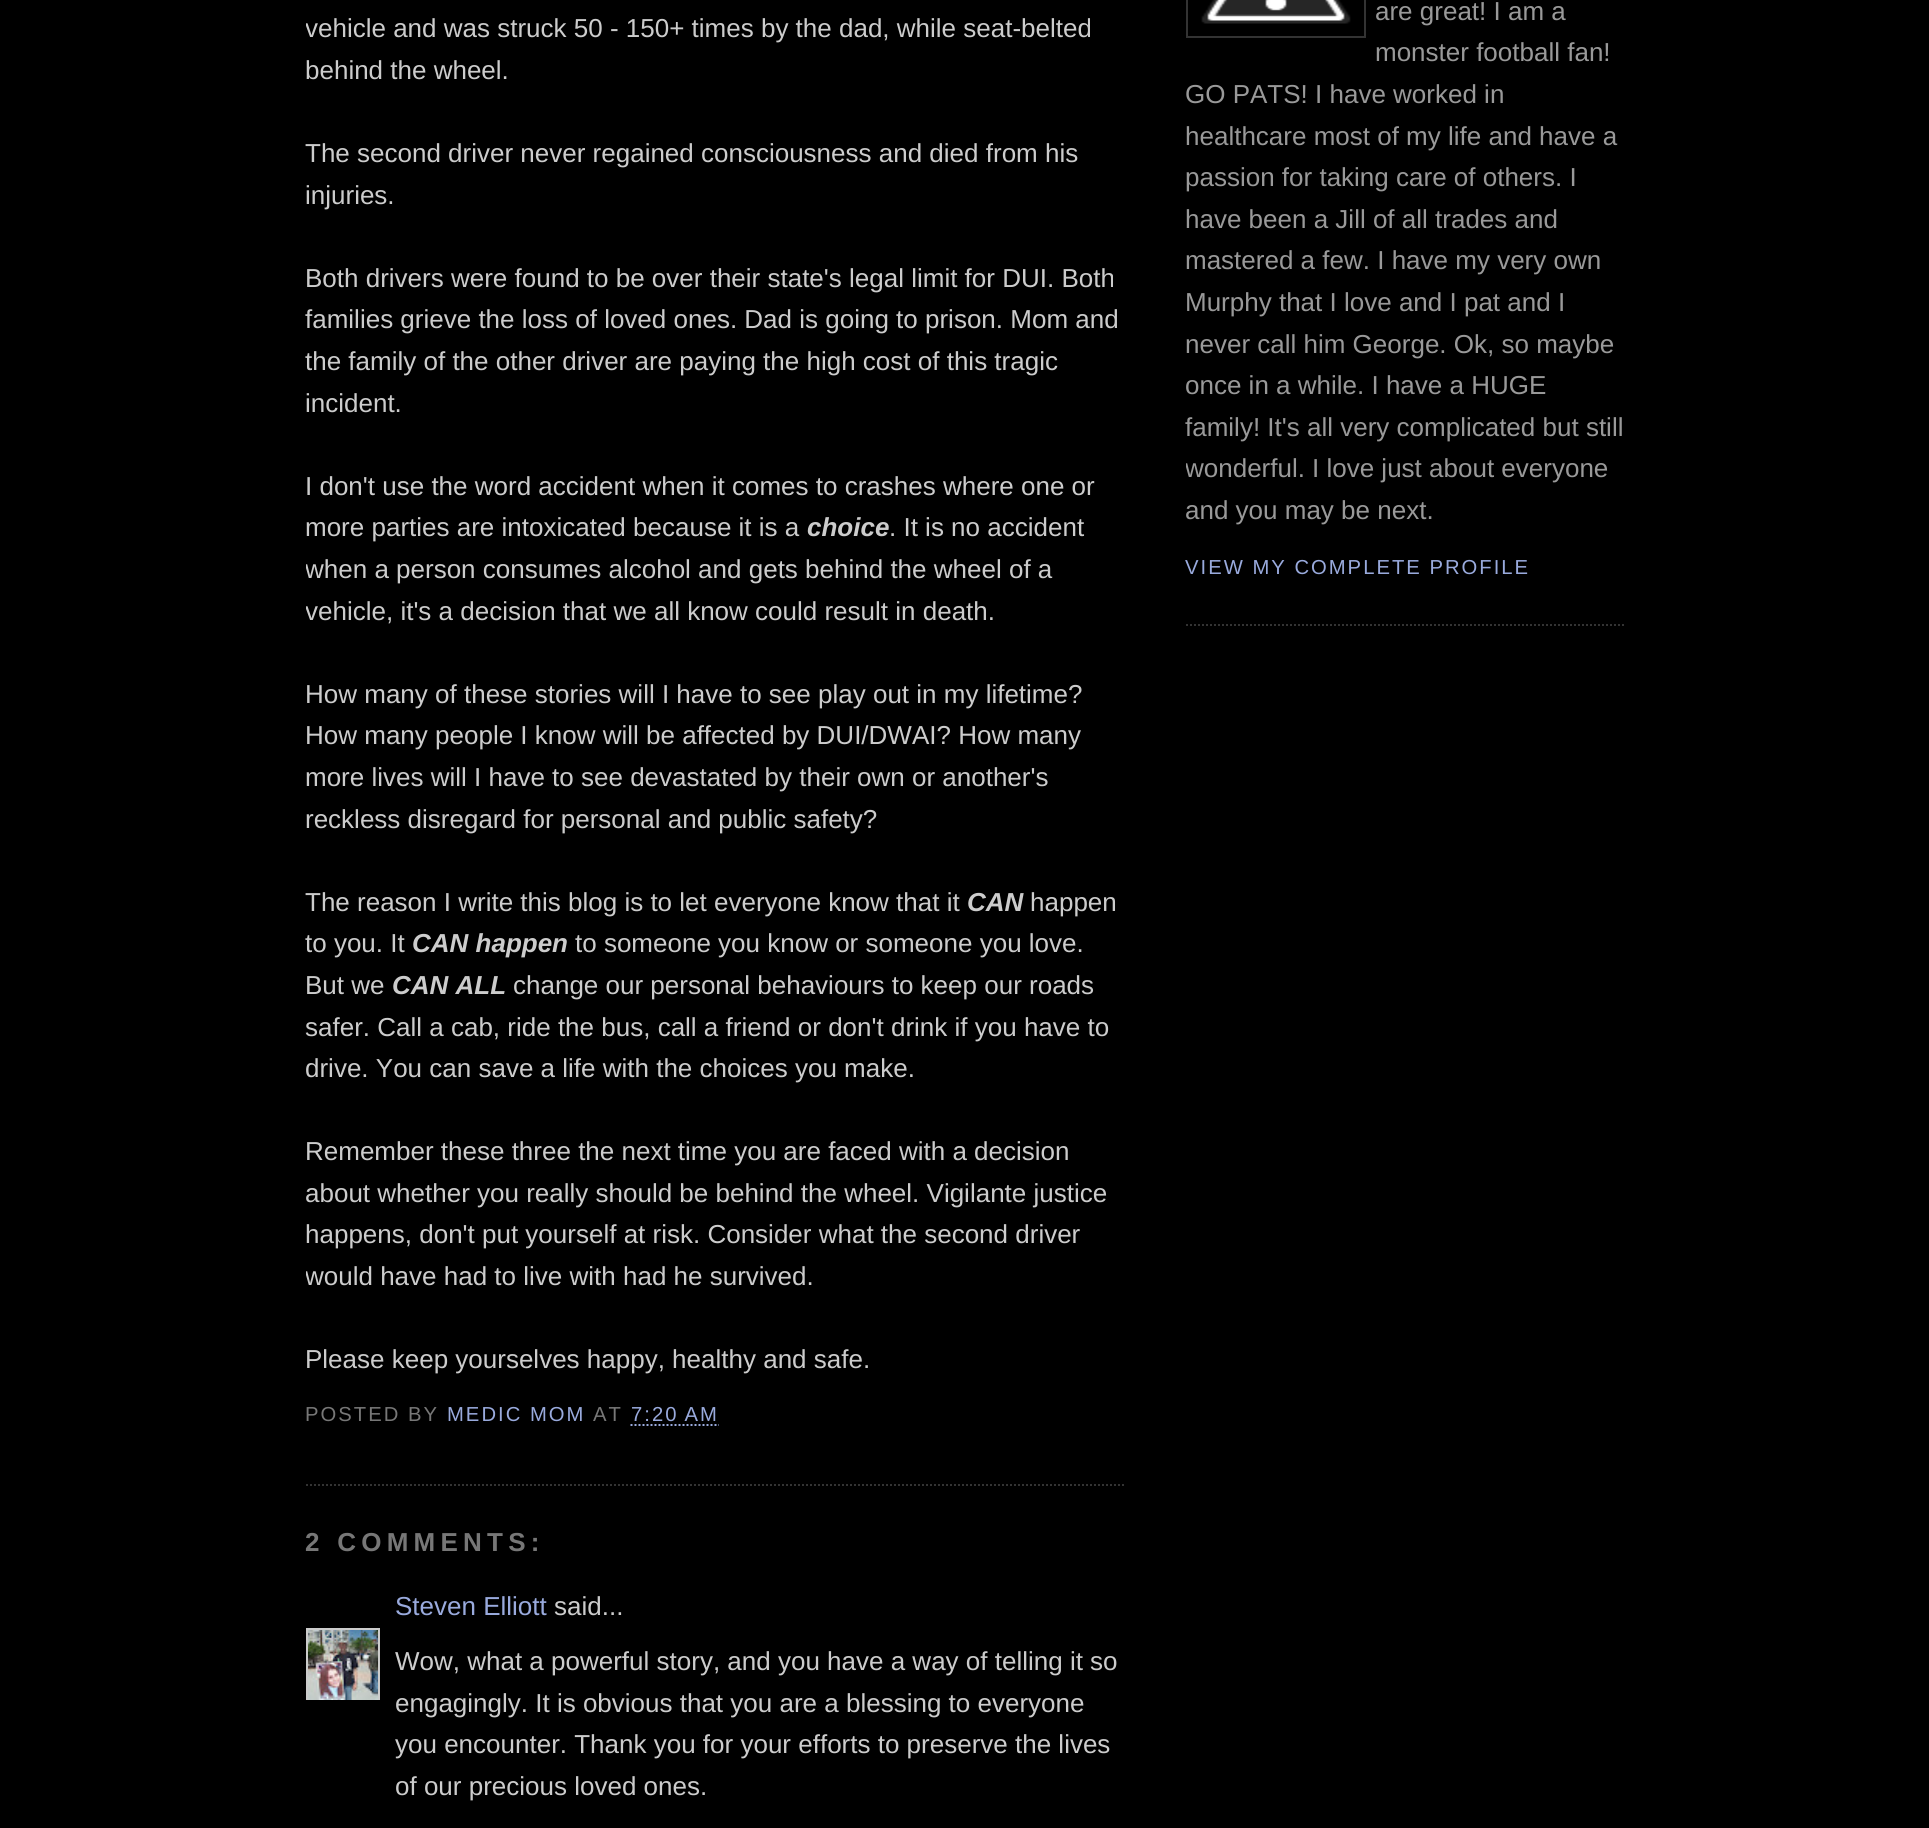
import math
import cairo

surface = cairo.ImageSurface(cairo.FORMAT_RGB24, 1929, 1828)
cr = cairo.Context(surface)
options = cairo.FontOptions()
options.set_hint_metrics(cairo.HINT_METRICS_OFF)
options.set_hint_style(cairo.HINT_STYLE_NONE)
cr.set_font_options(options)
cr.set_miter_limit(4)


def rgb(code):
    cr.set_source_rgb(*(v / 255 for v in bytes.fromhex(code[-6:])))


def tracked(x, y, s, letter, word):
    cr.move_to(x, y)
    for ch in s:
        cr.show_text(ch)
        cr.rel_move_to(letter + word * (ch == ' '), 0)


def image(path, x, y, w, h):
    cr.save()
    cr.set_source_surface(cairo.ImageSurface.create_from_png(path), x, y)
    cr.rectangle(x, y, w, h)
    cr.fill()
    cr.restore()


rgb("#000000")
cr.paint()
cr.new_path()
cr.move_to(306, 1485)
cr.line_to(1126, 1485)
rgb("#333333")
cr.set_dash([2, 2])
cr.stroke()
cr.new_path()
cr.move_to(630.5, 1425)
cr.line_to(719, 1425)
rgb("#99aadd")
cr.stroke()
cr.save()
cr.rectangle(306, 1628, 74, 72)
cr.clip()
cr.rectangle(307, 1629, 72, 72)
rgb("#cccccc")
cr.set_dash([])
cr.stroke()
cr.restore()
image("img/1.png", 308, 1630, 70, 70)
cr.new_path()
cr.move_to(1186, 625)
cr.line_to(1626, 625)
rgb("#333333")
cr.stroke()
cr.rectangle(1187, -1, 178, 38)
cr.set_dash([])
cr.stroke()
image("img/2.png", 1201, 0, 150, 24)
cr.save()
cr.rectangle(306, 0, 820, 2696)
cr.clip()
cr.select_font_face("Liberation Sans")
cr.set_font_size(26)
rgb("#cccccc")
cr.move_to(305, 37)
cr.show_text("vehicle and was struck 50 - 150+ times by the dad, while seat-belted")
cr.restore()
cr.select_font_face("Liberation Sans")
cr.set_font_size(26)
rgb("#cccccc")
for x, y, s in [
    (305, 79, "behind the wheel."),
    (305, 162, "The second driver never regained consciousness and died from his"),
    (305, 204, "injuries."),
    (305, 287, "Both drivers were found to be over their state's legal limit for DUI. Both"),
    (305, 328, "families grieve the loss of loved ones. Dad is going to prison. Mom and"),
    (305, 370, "the family of the other driver are paying the high cost of this tragic"),
    (305, 412, "incident."),
    (305, 495, "I don't use the word accident when it comes to crashes where one or"),
    (305, 536, "more parties are intoxicated because it is a"),
]:
    cr.move_to(x, y)
    cr.show_text(s)
cr.select_font_face("Liberation Sans", cairo.FONT_SLANT_ITALIC, cairo.FONT_WEIGHT_BOLD)
cr.move_to(807, 536)
cr.show_text("choice")
cr.select_font_face("Liberation Sans")
cr.move_to(889, 536)
cr.show_text(". It is no accident")
cr.save()
cr.rectangle(306, 0, 820, 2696)
cr.clip()
cr.move_to(305, 578)
cr.show_text("when a person consumes alcohol and gets behind the wheel of a")
cr.move_to(305, 620)
cr.show_text("vehicle, it's a decision that we all know could result in death.")
cr.restore()
for x, y, s in [
    (305, 703, "How many of these stories will I have to see play out in my lifetime?"),
    (305, 744, "How many people I know will be affected by DUI/DWAI? How many"),
    (305, 786, "more lives will I have to see devastated by their own or another's"),
    (305, 828, "reckless disregard for personal and public safety?"),
    (305, 911, "The reason I write this blog is to let everyone know that it"),
]:
    cr.move_to(x, y)
    cr.show_text(s)
cr.select_font_face("Liberation Sans", cairo.FONT_SLANT_ITALIC, cairo.FONT_WEIGHT_BOLD)
cr.move_to(967, 911)
cr.show_text("CAN")
cr.select_font_face("Liberation Sans")
cr.move_to(1030, 911)
cr.show_text("happen")
cr.move_to(305, 952)
cr.show_text("to you. It")
cr.select_font_face("Liberation Sans", cairo.FONT_SLANT_ITALIC, cairo.FONT_WEIGHT_BOLD)
cr.move_to(412, 952)
cr.show_text("CAN happen")
cr.select_font_face("Liberation Sans")
cr.move_to(575, 952)
cr.show_text("to someone you know or someone you love.")
cr.move_to(305, 994)
cr.show_text("But we")
cr.select_font_face("Liberation Sans", cairo.FONT_SLANT_ITALIC, cairo.FONT_WEIGHT_BOLD)
cr.move_to(392, 994)
cr.show_text("CAN ALL")
cr.select_font_face("Liberation Sans")
for x, y, s in [
    (513, 994, "change our personal behaviours to keep our roads"),
    (305, 1036, "safer. Call a cab, ride the bus, call a friend or don't drink if you have to"),
    (305, 1077, "drive. You can save a life with the choices you make."),
    (305, 1160, "Remember these three the next time you are faced with a decision"),
    (305, 1202, "about whether you really should be behind the wheel. Vigilante justice"),
    (305, 1243, "happens, don't put yourself at risk. Consider what the second driver"),
]:
    cr.move_to(x, y)
    cr.show_text(s)
cr.save()
cr.rectangle(306, 0, 820, 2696)
cr.clip()
cr.move_to(305, 1285)
cr.show_text("would have had to live with had he survived.")
cr.restore()
cr.move_to(305, 1368)
cr.show_text("Please keep yourselves happy, healthy and safe.")
cr.set_font_size(20.25)
rgb("#777777")
tracked(305, 1421, "POSTED BY", 2, 0)
rgb("#99aadd")
tracked(447, 1421, "MEDIC MOM", 2, 0)
rgb("#777777")
tracked(593, 1421, "AT", 2, 0)
rgb("#99aadd")
tracked(631, 1421, "7:20 AM", 2, 0)
cr.select_font_face("Liberation Sans", cairo.FONT_SLANT_NORMAL, cairo.FONT_WEIGHT_BOLD)
cr.set_font_size(26)
rgb("#777777")
tracked(305, 1551, "2 COMMENTS:", 5.25, 0)
cr.select_font_face("Liberation Sans")
rgb("#99aadd")
cr.move_to(395, 1615)
cr.show_text("Steven Elliott")
rgb("#cccccc")
for x, y, s in [
    (554, 1615, "said..."),
    (395, 1670, "Wow, what a powerful story, and you have a way of telling it so"),
    (395, 1712, "engagingly. It is obvious that you are a blessing to everyone"),
    (395, 1753, "you encounter. Thank you for your efforts to preserve the lives"),
    (395, 1795, "of our precious loved ones."),
]:
    cr.move_to(x, y)
    cr.show_text(s)
rgb("#999999")
for x, y, s in [
    (1375, 20, "are great! I am a"),
    (1375, 61, "monster football fan!"),
    (1185, 103, "GO PATS! I have worked in"),
    (1185, 145, "healthcare most of my life and have a"),
    (1185, 186, "passion for taking care of others. I"),
    (1185, 228, "have been a Jill of all trades and"),
    (1185, 269, "mastered a few. I have my very own"),
    (1185, 311, "Murphy that I love and I pat and I"),
    (1185, 353, "never call him George. Ok, so maybe"),
    (1185, 394, "once in a while. I have a HUGE"),
    (1185, 436, "family! It's all very complicated but still"),
]:
    cr.move_to(x, y)
    cr.show_text(s)
cr.save()
cr.rectangle(1186, 0, 440, 664)
cr.clip()
cr.move_to(1185, 477)
cr.show_text("wonderful.")
cr.restore()
cr.move_to(1312, 477)
cr.show_text("I love just about everyone")
cr.move_to(1185, 519)
cr.show_text("and you may be next.")
cr.set_font_size(20.25)
rgb("#99aadd")
tracked(1185, 574, "VIEW MY COMPLETE PROFILE", 2, 0)
surface.write_to_png("page.png")
